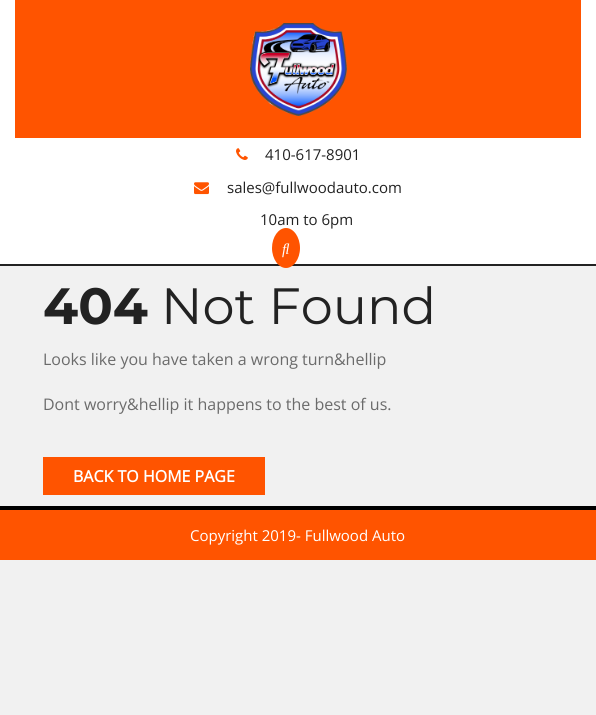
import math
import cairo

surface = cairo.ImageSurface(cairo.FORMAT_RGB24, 596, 715)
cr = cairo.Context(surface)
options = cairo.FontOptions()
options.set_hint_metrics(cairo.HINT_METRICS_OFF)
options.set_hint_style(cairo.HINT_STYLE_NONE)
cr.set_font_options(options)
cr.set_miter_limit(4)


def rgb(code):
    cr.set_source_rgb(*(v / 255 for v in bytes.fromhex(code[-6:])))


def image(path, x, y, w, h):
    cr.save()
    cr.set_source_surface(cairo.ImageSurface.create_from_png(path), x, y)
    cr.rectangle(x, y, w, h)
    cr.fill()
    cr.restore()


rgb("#f1f1f1")
cr.paint()
for x, y, w, h, color in [
    (0, 0, 596, 264, "#ffffff"),
    (0, 264, 596, 2, "#222222"),
    (15, 0, 566, 138, "#ff5400"),
]:
    rgb(color)
    cr.rectangle(x, y, w, h)
    cr.fill()
image("img/1.png", 250, 23, 97, 93)
image("img/2.png", 236, 148, 12, 12)
image("img/3.png", 194, 182, 15, 13)
for x, y, w, h, color in [
    (43, 457, 222, 38, "#ff5400"),
    (0, 506, 596, 4, "#000000"),
    (0, 510, 596, 50, "#ff5400"),
]:
    rgb(color)
    cr.rectangle(x, y, w, h)
    cr.fill()
cr.select_font_face("Open Sans")
cr.set_font_size(15)
rgb("#222222")
for x, y, s in [
    (265, 160, "410-617-8901"),
    (227, 193, "sales@fullwoodauto.com"),
    (260, 225, "10am to 6pm"),
]:
    cr.move_to(x, y)
    cr.show_text(s)
rgb("#ff5400")
cr.new_path()
cr.move_to(286, 228)
cr.curve_to(293.5, 228, 300, 237, 300, 248)
cr.curve_to(300, 259, 293.5, 268, 286, 268)
cr.curve_to(278.5, 268, 272, 259, 272, 248)
cr.curve_to(272, 237, 278.5, 228, 286, 228)
cr.close_path()
cr.fill()
image("img/4.png", 282, 243, 8, 15)
cr.select_font_face("Montserrat", cairo.FONT_SLANT_NORMAL, cairo.FONT_WEIGHT_BOLD)
cr.set_font_size(51)
rgb("#222222")
cr.move_to(43, 324)
cr.show_text("404")
cr.select_font_face("Montserrat")
cr.move_to(161, 324)
cr.show_text("Not Found")
cr.select_font_face("Open Sans")
cr.set_font_size(16)
rgb("#6b6b6b")
cr.move_to(43, 365)
cr.show_text("Looks like you have taken a wrong turn&hellip")
cr.move_to(43, 410)
cr.show_text("Dont worry&hellip it happens to the best of us.")
cr.select_font_face("Open Sans", cairo.FONT_SLANT_NORMAL, cairo.FONT_WEIGHT_BOLD)
rgb("#ffffff")
cr.move_to(73, 482)
cr.show_text("BACK TO HOME PAGE")
cr.select_font_face("Open Sans")
cr.set_font_size(15)
cr.move_to(190, 541)
cr.show_text("Copyright 2019- Fullwood Auto")
surface.write_to_png("page.png")
